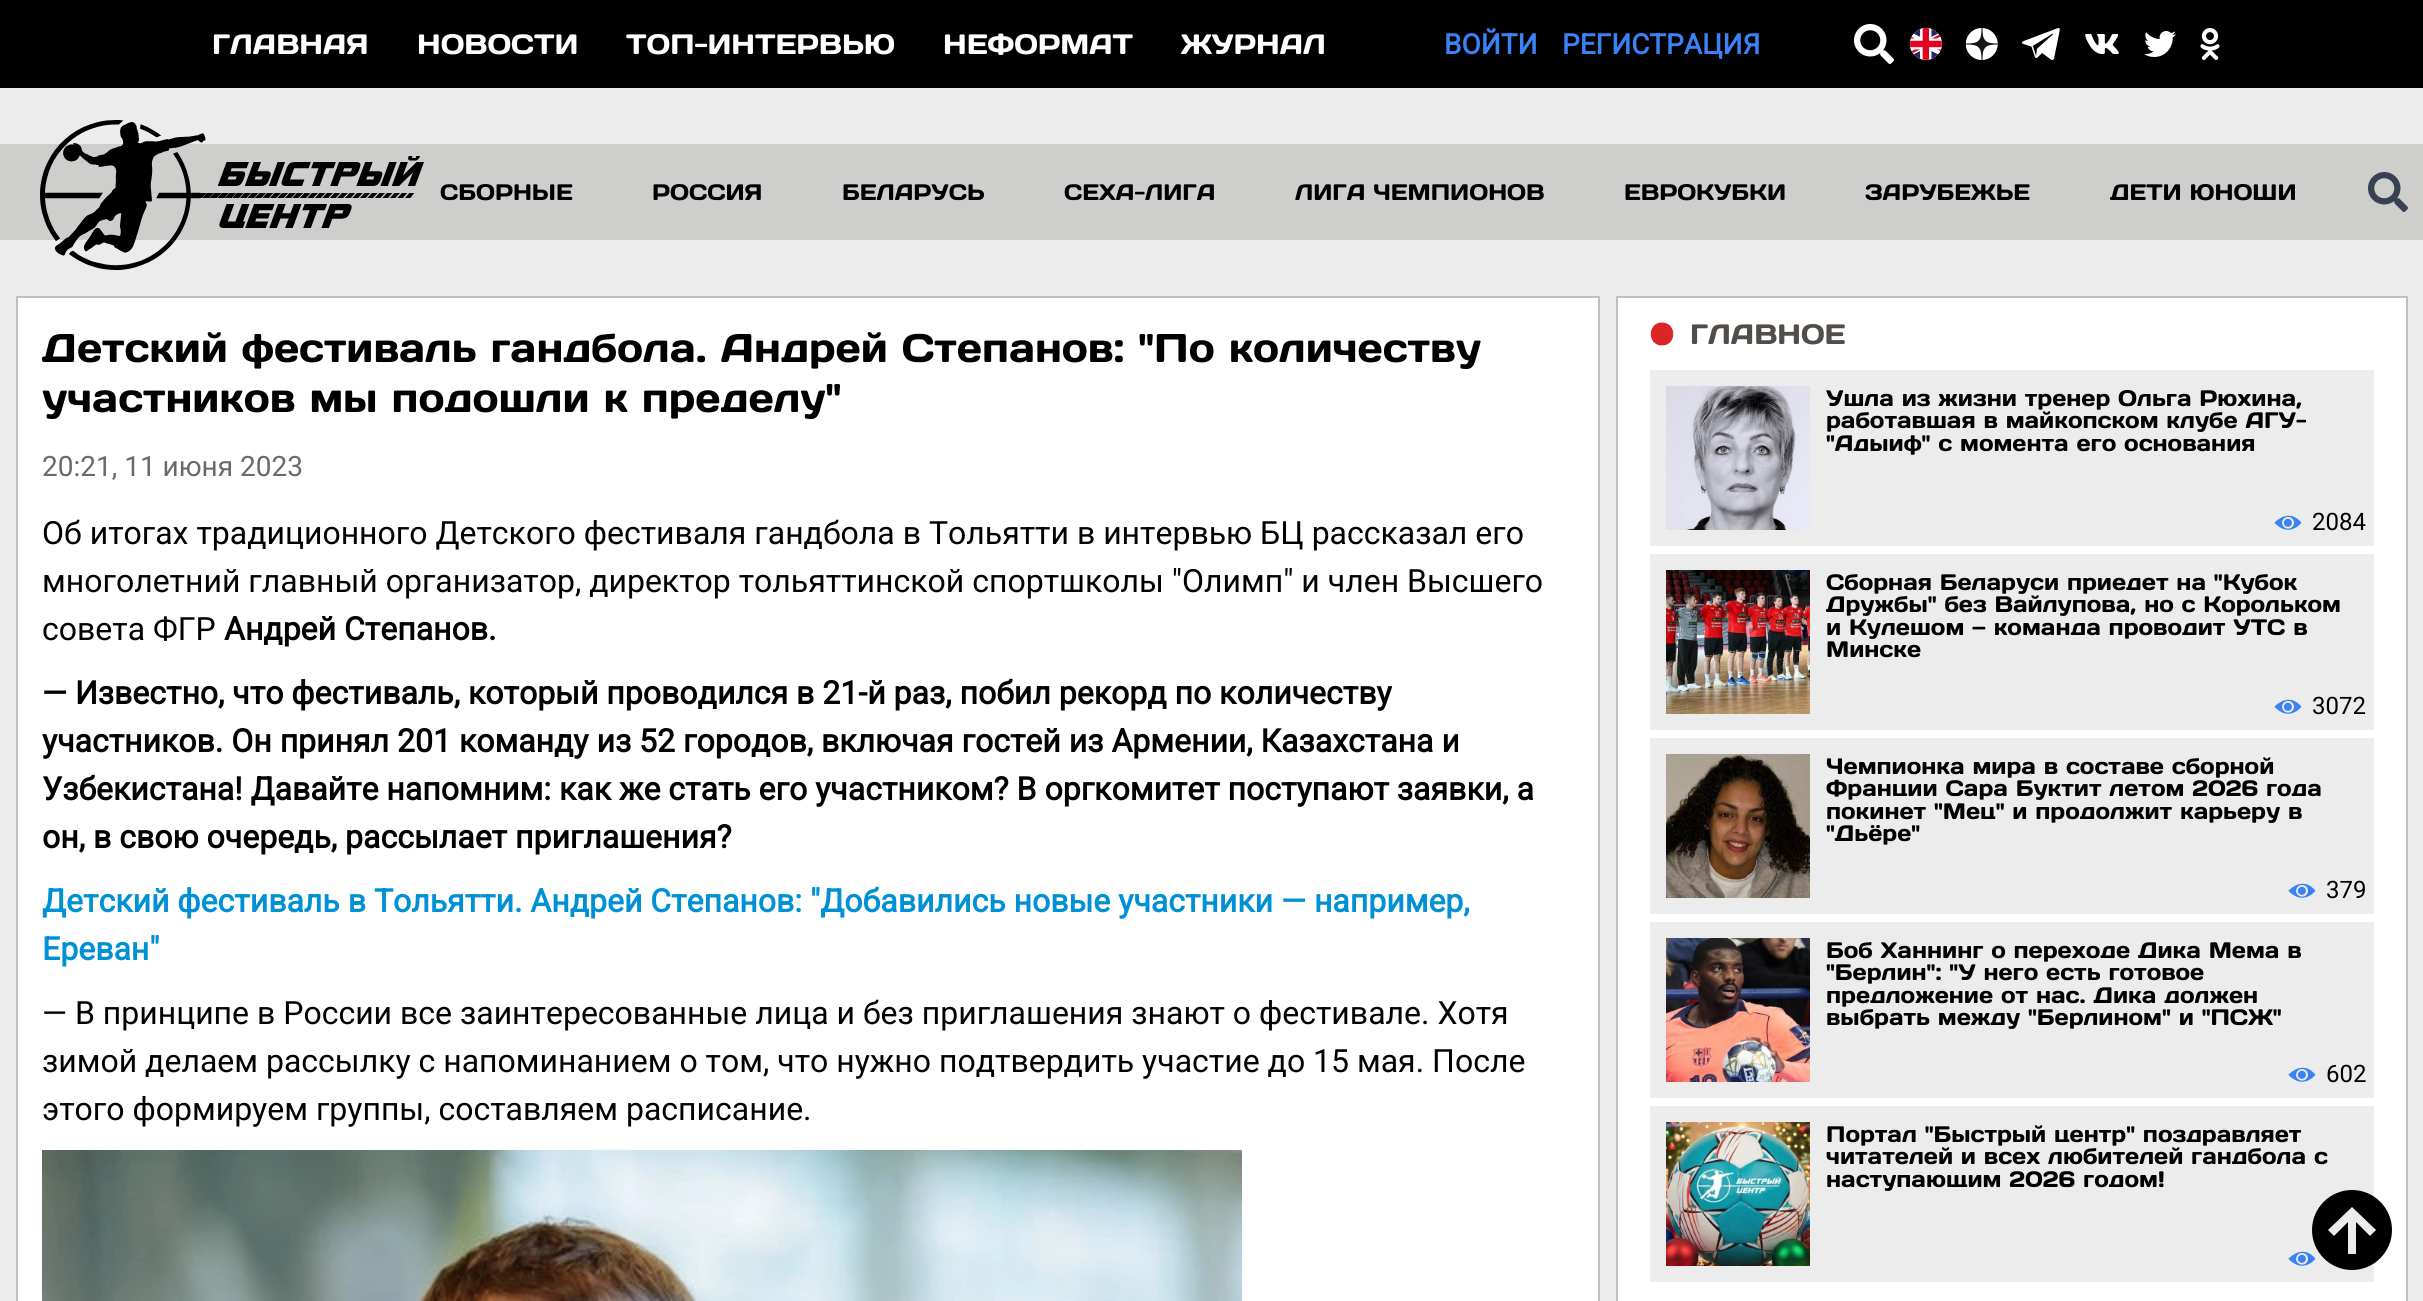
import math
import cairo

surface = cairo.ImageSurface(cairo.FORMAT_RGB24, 2423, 1301)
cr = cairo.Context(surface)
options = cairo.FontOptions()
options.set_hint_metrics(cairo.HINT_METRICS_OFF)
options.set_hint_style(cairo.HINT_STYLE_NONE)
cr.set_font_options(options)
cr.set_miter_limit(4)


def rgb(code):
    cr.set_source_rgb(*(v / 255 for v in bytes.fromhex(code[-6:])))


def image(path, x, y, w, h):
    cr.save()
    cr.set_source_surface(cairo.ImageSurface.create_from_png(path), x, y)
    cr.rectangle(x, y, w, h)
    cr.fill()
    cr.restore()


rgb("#000000")
cr.paint()
image("img/1.png", 1854, 24, 40, 40)
image("img/2.png", 1910, 28, 32, 32)
image("img/3.png", 1966, 28, 32, 32)
image("img/4.png", 2022, 28, 38, 32)
image("img/5.png", 2085, 34, 34, 20)
image("img/6.png", 2144, 31, 32, 26)
image("img/7.png", 2200, 28, 20, 32)
rgb("#edecec")
cr.rectangle(0, 88, 2423, 1213)
cr.fill()
rgb("#cecfcd")
cr.rectangle(0, 144, 2423, 96)
cr.fill()
image("img/8.png", 40, 120, 384, 150)
image("img/9.png", 2368, 172, 40, 40)
rgb("#ffffff")
cr.rectangle(17, 297, 1582, 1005)
cr.fill_preserve()
rgb("#bebfc1")
cr.stroke()
image("img/10.png", 42, 1150, 1200, 151)
rgb("#ffffff")
cr.rectangle(1617, 297, 790, 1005)
cr.fill_preserve()
rgb("#bebfc1")
cr.stroke()
rgb("#edecec")
cr.rectangle(1650, 1106, 724, 176)
cr.fill()
image("img/12.png", 2288, 1251, 28, 15)
rgb("#000000")
cr.new_path()
cr.move_to(2356, 1254)
cr.line_to(2356, 1222)
cr.line_to(2370, 1236)
cr.line_to(2376, 1230)
cr.line_to(2352, 1207)
cr.line_to(2328, 1230)
cr.line_to(2334, 1236)
cr.line_to(2348, 1222)
cr.line_to(2348, 1254)
cr.line_to(2356, 1254)
cr.move_to(2352, 1190)
cr.curve_to(2374, 1190, 2392, 1208, 2392, 1230)
cr.curve_to(2392, 1252, 2374, 1270, 2352, 1270)
cr.curve_to(2330, 1270, 2312, 1252, 2312, 1230)
cr.curve_to(2312, 1208, 2330, 1190, 2352, 1190)
cr.close_path()
cr.fill()
rgb("#dc2626")
cr.new_path()
cr.move_to(1662, 322.5)
cr.curve_to(1647, 322.5, 1647, 345.5, 1662, 345.5)
cr.curve_to(1677, 345.5, 1677, 322.5, 1662, 322.5)
cr.close_path()
cr.fill()
rgb("#edecec")
cr.rectangle(1650, 370, 724, 176)
cr.fill()
image("img/11.png", 1666, 386, 144, 144)
image("img/12.png", 2274, 515, 28, 15)
cr.rectangle(1650, 554, 724, 176)
cr.fill()
image("img/13.png", 1666, 570, 144, 144)
image("img/12.png", 2274, 699, 28, 15)
cr.rectangle(1650, 738, 724, 176)
cr.fill()
image("img/14.png", 1666, 754, 144, 144)
image("img/12.png", 2288, 883, 28, 15)
cr.rectangle(1650, 922, 724, 176)
cr.fill()
image("img/15.png", 1666, 938, 144, 144)
image("img/12.png", 2288, 1067, 28, 15)
image("img/16.png", 1666, 1122, 144, 144)
cr.select_font_face("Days")
cr.set_font_size(28)
rgb("#ffffff")
for x, y, s in [
    (212, 54, "ГЛАВНАЯ"),
    (417, 54, "НОВОСТИ"),
    (626, 54, "ТОП-ИНТЕРВЬЮ"),
    (943, 54, "НЕФОРМАТ"),
    (1181, 54, "ЖУРНАЛ"),
]:
    cr.move_to(x, y)
    cr.show_text(s)
cr.select_font_face("Roboto", cairo.FONT_SLANT_NORMAL, cairo.FONT_WEIGHT_BOLD)
rgb("#3b82f6")
cr.move_to(1444, 54)
cr.show_text("ВОЙТИ")
cr.move_to(1562, 54)
cr.show_text("РЕГИСТРАЦИЯ")
cr.select_font_face("Days")
cr.set_font_size(22.4)
rgb("#000000")
for x, y, s in [
    (440, 200, "СБОРНЫЕ"),
    (652, 200, "РОССИЯ"),
    (842, 200, "БЕЛАРУСЬ"),
    (1064, 200, "СЕХА-ЛИГА"),
    (1295, 200, "ЛИГА ЧЕМПИОНОВ"),
    (1624, 200, "ЕВРОКУБКИ"),
    (1865, 200, "ЗАРУБЕЖЬЕ"),
    (2110, 200, "ДЕТИ ЮНОШИ"),
]:
    cr.move_to(x, y)
    cr.show_text(s)
cr.set_font_size(40)
cr.move_to(42, 362)
cr.show_text("Детский фестиваль гандбола. Андрей Степанов: \"По количеству")
cr.move_to(42, 412)
cr.show_text("участников мы подошли к пределу\"")
cr.select_font_face("Roboto")
cr.set_font_size(28)
rgb("#6a6a6a")
cr.move_to(42, 476)
cr.show_text("20:21, 11 июня 2023")
cr.set_font_size(32)
rgb("#000000")
for x, y, s in [
    (42, 544, "Об итогах традиционного Детского фестиваля гандбола в Тольятти в интервью БЦ рассказал его"),
    (42, 592, "многолетний главный организатор, директор тольяттинской спортшколы \"Олимп\" и член Высшего"),
    (42, 640, "совета ФГР"),
]:
    cr.move_to(x, y)
    cr.show_text(s)
cr.select_font_face("Roboto", cairo.FONT_SLANT_NORMAL, cairo.FONT_WEIGHT_BOLD)
for x, y, s in [
    (224, 640, "Андрей Степанов."),
    (42, 704, "— Известно, что фестиваль, который проводился в 21-й раз, побил рекорд по количеству"),
    (42, 752, "участников. Он принял 201 команду из 52 городов, включая гостей из Армении, Казахстана и"),
    (42, 800, "Узбекистана! Давайте напомним: как же стать его участником? В оргкомитет поступают заявки, а"),
    (42, 848, "он, в свою очередь, рассылает приглашения?"),
]:
    cr.move_to(x, y)
    cr.show_text(s)
rgb("#0090d6")
cr.move_to(42, 912)
cr.show_text("Детский фестиваль в Тольятти. Андрей Степанов: \"Добавились новые участники — например,")
cr.move_to(42, 960)
cr.show_text("Ереван\"")
cr.select_font_face("Roboto")
rgb("#000000")
for x, y, s in [
    (42, 1024, "— В принципе в России все заинтересованные лица и без приглашения знают о фестивале. Хотя"),
    (42, 1072, "зимой делаем рассылку с напоминанием о том, что нужно подтвердить участие до 15 мая. После"),
    (42, 1120, "этого формируем группы, составляем расписание."),
]:
    cr.move_to(x, y)
    cr.show_text(s)
cr.select_font_face("Days")
cr.set_font_size(28)
rgb("#514e49")
cr.move_to(1690, 344)
cr.show_text("ГЛАВНОЕ")
cr.set_font_size(22.4)
rgb("#000000")
for x, y, s in [
    (1826, 406, "Ушла из жизни тренер Ольга Рюхина,"),
    (1826, 428, "работавшая в майкопском клубе АГУ-"),
    (1826, 451, "\"Адыиф\" с момента его основания"),
]:
    cr.move_to(x, y)
    cr.show_text(s)
cr.select_font_face("Roboto")
cr.set_font_size(24)
cr.move_to(2312, 530)
cr.show_text("2084")
cr.select_font_face("Days")
cr.set_font_size(22.4)
for x, y, s in [
    (1826, 590, "Сборная Беларуси приедет на \"Кубок"),
    (1826, 612, "Дружбы\" без Вайлупова, но с Корольком"),
    (1826, 635, "и Кулешом — команда проводит УТС в"),
    (1826, 657, "Минске"),
]:
    cr.move_to(x, y)
    cr.show_text(s)
cr.select_font_face("Roboto")
cr.set_font_size(24)
cr.move_to(2312, 714)
cr.show_text("3072")
cr.select_font_face("Days")
cr.set_font_size(22.4)
for x, y, s in [
    (1826, 774, "Чемпионка мира в составе сборной"),
    (1826, 796, "Франции Сара Буктит летом 2026 года"),
    (1826, 819, "покинет \"Мец\" и продолжит карьеру в"),
    (1826, 841, "\"Дьёре\""),
]:
    cr.move_to(x, y)
    cr.show_text(s)
cr.select_font_face("Roboto")
cr.set_font_size(24)
cr.move_to(2326, 898)
cr.show_text("379")
cr.select_font_face("Days")
cr.set_font_size(22.4)
for x, y, s in [
    (1826, 958, "Боб Ханнинг о переходе Дика Мема в"),
    (1826, 980, "\"Берлин\": \"У него есть готовое"),
    (1826, 1003, "предложение от нас. Дика должен"),
    (1826, 1025, "выбрать между \"Берлином\" и \"ПСЖ\""),
]:
    cr.move_to(x, y)
    cr.show_text(s)
cr.select_font_face("Roboto")
cr.set_font_size(24)
cr.move_to(2326, 1082)
cr.show_text("602")
cr.select_font_face("Days")
cr.set_font_size(22.4)
for x, y, s in [
    (1826, 1142, "Портал \"Быстрый центр\" поздравляет"),
    (1826, 1164, "читателей и всех любителей гандбола с"),
    (1826, 1187, "наступающим 2026 годом!"),
]:
    cr.move_to(x, y)
    cr.show_text(s)
surface.write_to_png("page.png")
